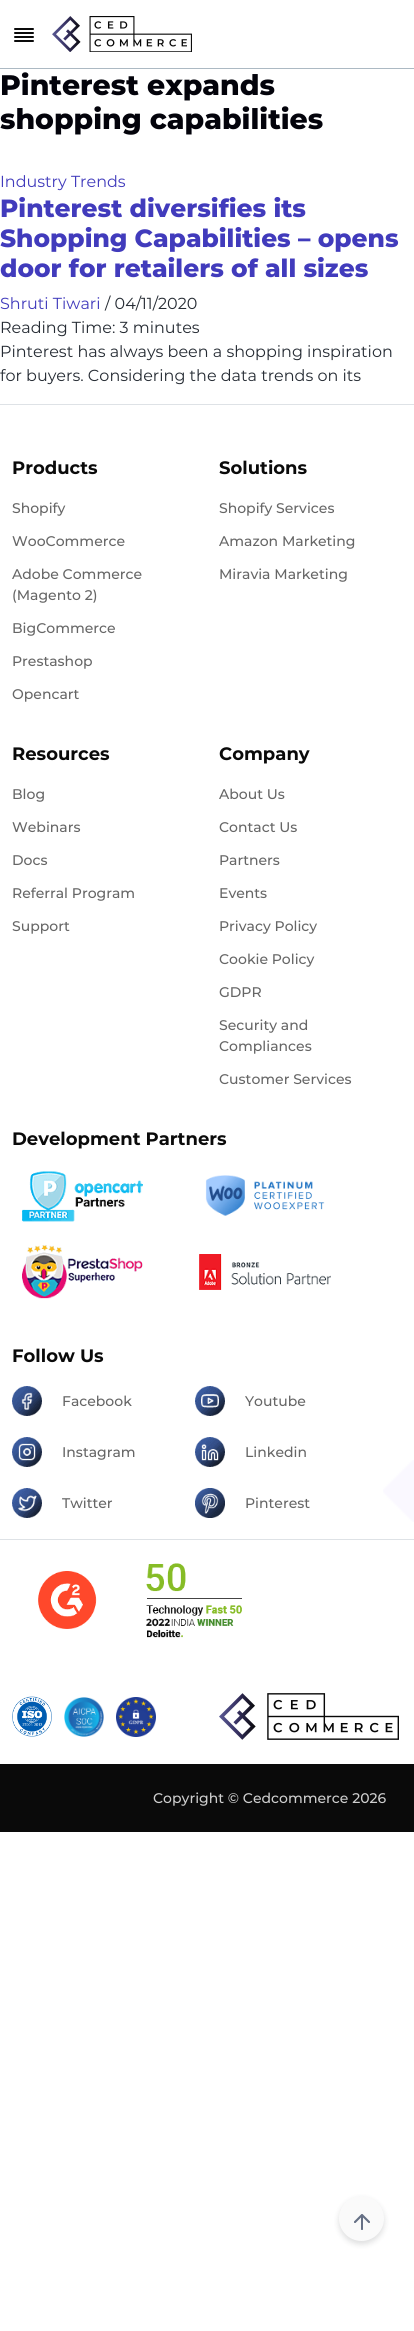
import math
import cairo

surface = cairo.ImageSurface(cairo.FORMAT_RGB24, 414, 2331)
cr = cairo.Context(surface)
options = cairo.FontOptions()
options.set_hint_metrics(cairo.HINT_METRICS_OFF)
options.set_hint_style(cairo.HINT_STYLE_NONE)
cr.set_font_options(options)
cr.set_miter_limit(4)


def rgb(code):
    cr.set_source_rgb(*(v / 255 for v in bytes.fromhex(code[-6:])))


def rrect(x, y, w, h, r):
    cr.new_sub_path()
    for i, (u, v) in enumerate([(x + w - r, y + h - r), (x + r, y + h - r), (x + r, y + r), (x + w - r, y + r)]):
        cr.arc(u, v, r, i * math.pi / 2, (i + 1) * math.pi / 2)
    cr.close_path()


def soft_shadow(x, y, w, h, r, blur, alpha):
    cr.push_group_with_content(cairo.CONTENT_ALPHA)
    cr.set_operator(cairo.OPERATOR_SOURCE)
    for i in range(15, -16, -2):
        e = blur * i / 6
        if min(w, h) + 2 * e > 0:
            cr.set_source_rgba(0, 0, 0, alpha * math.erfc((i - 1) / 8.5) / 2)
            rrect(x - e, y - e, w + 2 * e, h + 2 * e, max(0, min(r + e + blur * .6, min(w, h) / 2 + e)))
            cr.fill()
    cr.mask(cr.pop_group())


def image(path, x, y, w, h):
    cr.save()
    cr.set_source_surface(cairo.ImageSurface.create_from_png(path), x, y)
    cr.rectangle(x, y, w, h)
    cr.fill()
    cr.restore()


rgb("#ffffff")
cr.paint()
rgb("#acb9c3")
cr.rectangle(0, 68, 414, 1)
cr.fill()
image("img/1.png", 14, 28, 20, 14)
image("img/2.png", 52, 16, 140, 36)
image("img/3.png", 383, 1460, 31, 62)
rgb("#dee2e6")
cr.rectangle(0, 404, 414, 1)
cr.fill()
image("img/4.png", 22, 1171, 121, 51)
image("img/5.png", 205, 1175, 120, 41)
image("img/6.png", 22, 1245, 121, 54)
image("img/7.png", 199, 1254, 132, 36)
image("img/8.png", 12, 1386, 30, 30)
image("img/9.png", 195, 1386, 30, 30)
image("img/10.png", 12, 1437, 30, 30)
image("img/11.png", 195, 1437, 30, 30)
image("img/12.png", 12, 1488, 30, 30)
image("img/13.png", 195, 1488, 30, 30)
cr.rectangle(0, 1539, 414, 1)
cr.fill()
image("img/14.png", 38, 1571, 59, 58)
image("img/15.png", 146, 1563, 96, 75)
image("img/16.png", 12, 1696, 40, 41)
image("img/17.png", 64, 1697, 40, 40)
image("img/18.png", 116, 1697, 40, 40)
image("img/19.png", 219, 1693, 180, 47)
rgb("#0a0a0a")
cr.rectangle(0, 1764, 414, 68)
cr.fill()
rgb("#171c21")
soft_shadow(339, 2199, 45, 45, 22.5, 3, 0.15)
rgb("#fafafa")
cr.arc(361.5, 2218.5, 22.5, 0, 2 * math.pi)
cr.fill()
image("img/20.png", 354, 2214, 16, 16)
cr.select_font_face("Montserrat ExtraBold")
cr.set_font_size(28.25)
rgb("#03030b")
cr.move_to(0, 95)
cr.show_text("Pinterest expands")
cr.move_to(0, 129)
cr.show_text("shopping capabilities")
cr.select_font_face("Montserrat")
cr.set_font_size(16)
rgb("#413bbc")
cr.move_to(0, 187)
cr.show_text("Industry Trends")
cr.select_font_face("Montserrat ExtraBold")
cr.set_font_size(24.9)
for x, y, s in [
    (0, 217, "Pinterest diversifies its"),
    (0, 247, "Shopping Capabilities – opens"),
    (0, 277, "door for retailers of all sizes"),
]:
    cr.move_to(x, y)
    cr.show_text(s)
cr.select_font_face("Montserrat")
cr.set_font_size(16)
cr.move_to(0, 309)
cr.show_text("Shruti Tiwari")
rgb("#252b33")
for x, y, s in [
    (105, 309, "/ 04/11/2020"),
    (0, 333, "Reading Time: 3 minutes"),
    (0, 357, "Pinterest has always been a shopping inspiration"),
    (0, 381, "for buyers. Considering the data trends on its"),
]:
    cr.move_to(x, y)
    cr.show_text(s)
cr.select_font_face("Montserrat", cairo.FONT_SLANT_NORMAL, cairo.FONT_WEIGHT_BOLD)
cr.set_font_size(18)
rgb("#0a0a0a")
cr.move_to(12, 474)
cr.show_text("Products")
cr.select_font_face("Montserrat Medium")
cr.set_font_size(14)
rgb("#666666")
for x, y, s in [
    (12, 513, "Shopify"),
    (12, 546, "WooCommerce"),
    (12, 579, "Adobe Commerce"),
    (12, 600, "(Magento 2)"),
    (12, 633, "BigCommerce"),
    (12, 666, "Prestashop"),
    (12, 699, "Opencart"),
]:
    cr.move_to(x, y)
    cr.show_text(s)
cr.select_font_face("Montserrat", cairo.FONT_SLANT_NORMAL, cairo.FONT_WEIGHT_BOLD)
cr.set_font_size(18)
rgb("#0a0a0a")
cr.move_to(219, 474)
cr.show_text("Solutions")
cr.select_font_face("Montserrat Medium")
cr.set_font_size(14)
rgb("#666666")
for x, y, s in [
    (219, 513, "Shopify Services"),
    (219, 546, "Amazon Marketing"),
    (219, 579, "Miravia Marketing"),
]:
    cr.move_to(x, y)
    cr.show_text(s)
cr.select_font_face("Montserrat", cairo.FONT_SLANT_NORMAL, cairo.FONT_WEIGHT_BOLD)
cr.set_font_size(18)
rgb("#0a0a0a")
cr.move_to(12, 760)
cr.show_text("Resources")
cr.select_font_face("Montserrat Medium")
cr.set_font_size(14)
rgb("#666666")
for x, y, s in [
    (12, 799, "Blog"),
    (12, 832, "Webinars"),
    (12, 865, "Docs"),
    (12, 898, "Referral Program"),
    (12, 931, "Support"),
]:
    cr.move_to(x, y)
    cr.show_text(s)
cr.select_font_face("Montserrat", cairo.FONT_SLANT_NORMAL, cairo.FONT_WEIGHT_BOLD)
cr.set_font_size(18)
rgb("#0a0a0a")
cr.move_to(219, 760)
cr.show_text("Company")
cr.select_font_face("Montserrat Medium")
cr.set_font_size(14)
rgb("#666666")
for x, y, s in [
    (219, 799, "About Us"),
    (219, 832, "Contact Us"),
    (219, 865, "Partners"),
    (219, 898, "Events"),
    (219, 931, "Privacy Policy"),
    (219, 964, "Cookie Policy"),
    (219, 997, "GDPR"),
    (219, 1030, "Security and"),
    (219, 1051, "Compliances"),
    (219, 1084, "Customer Services"),
]:
    cr.move_to(x, y)
    cr.show_text(s)
cr.select_font_face("Montserrat", cairo.FONT_SLANT_NORMAL, cairo.FONT_WEIGHT_BOLD)
cr.set_font_size(18)
rgb("#0a0a0a")
cr.move_to(12, 1145)
cr.show_text("Development Partners")
cr.move_to(12, 1362)
cr.show_text("Follow Us")
cr.select_font_face("Montserrat Medium")
cr.set_font_size(14)
rgb("#666666")
for x, y, s in [
    (62, 1406, "Facebook"),
    (245, 1406, "Youtube"),
    (62, 1457, "Instagram"),
    (245, 1457, "Linkedin"),
    (62, 1508, "Twitter"),
    (245, 1508, "Pinterest"),
]:
    cr.move_to(x, y)
    cr.show_text(s)
rgb("#cecece")
cr.move_to(153, 1803)
cr.show_text("Copyright © Cedcommerce 2026")
surface.write_to_png("page.png")
